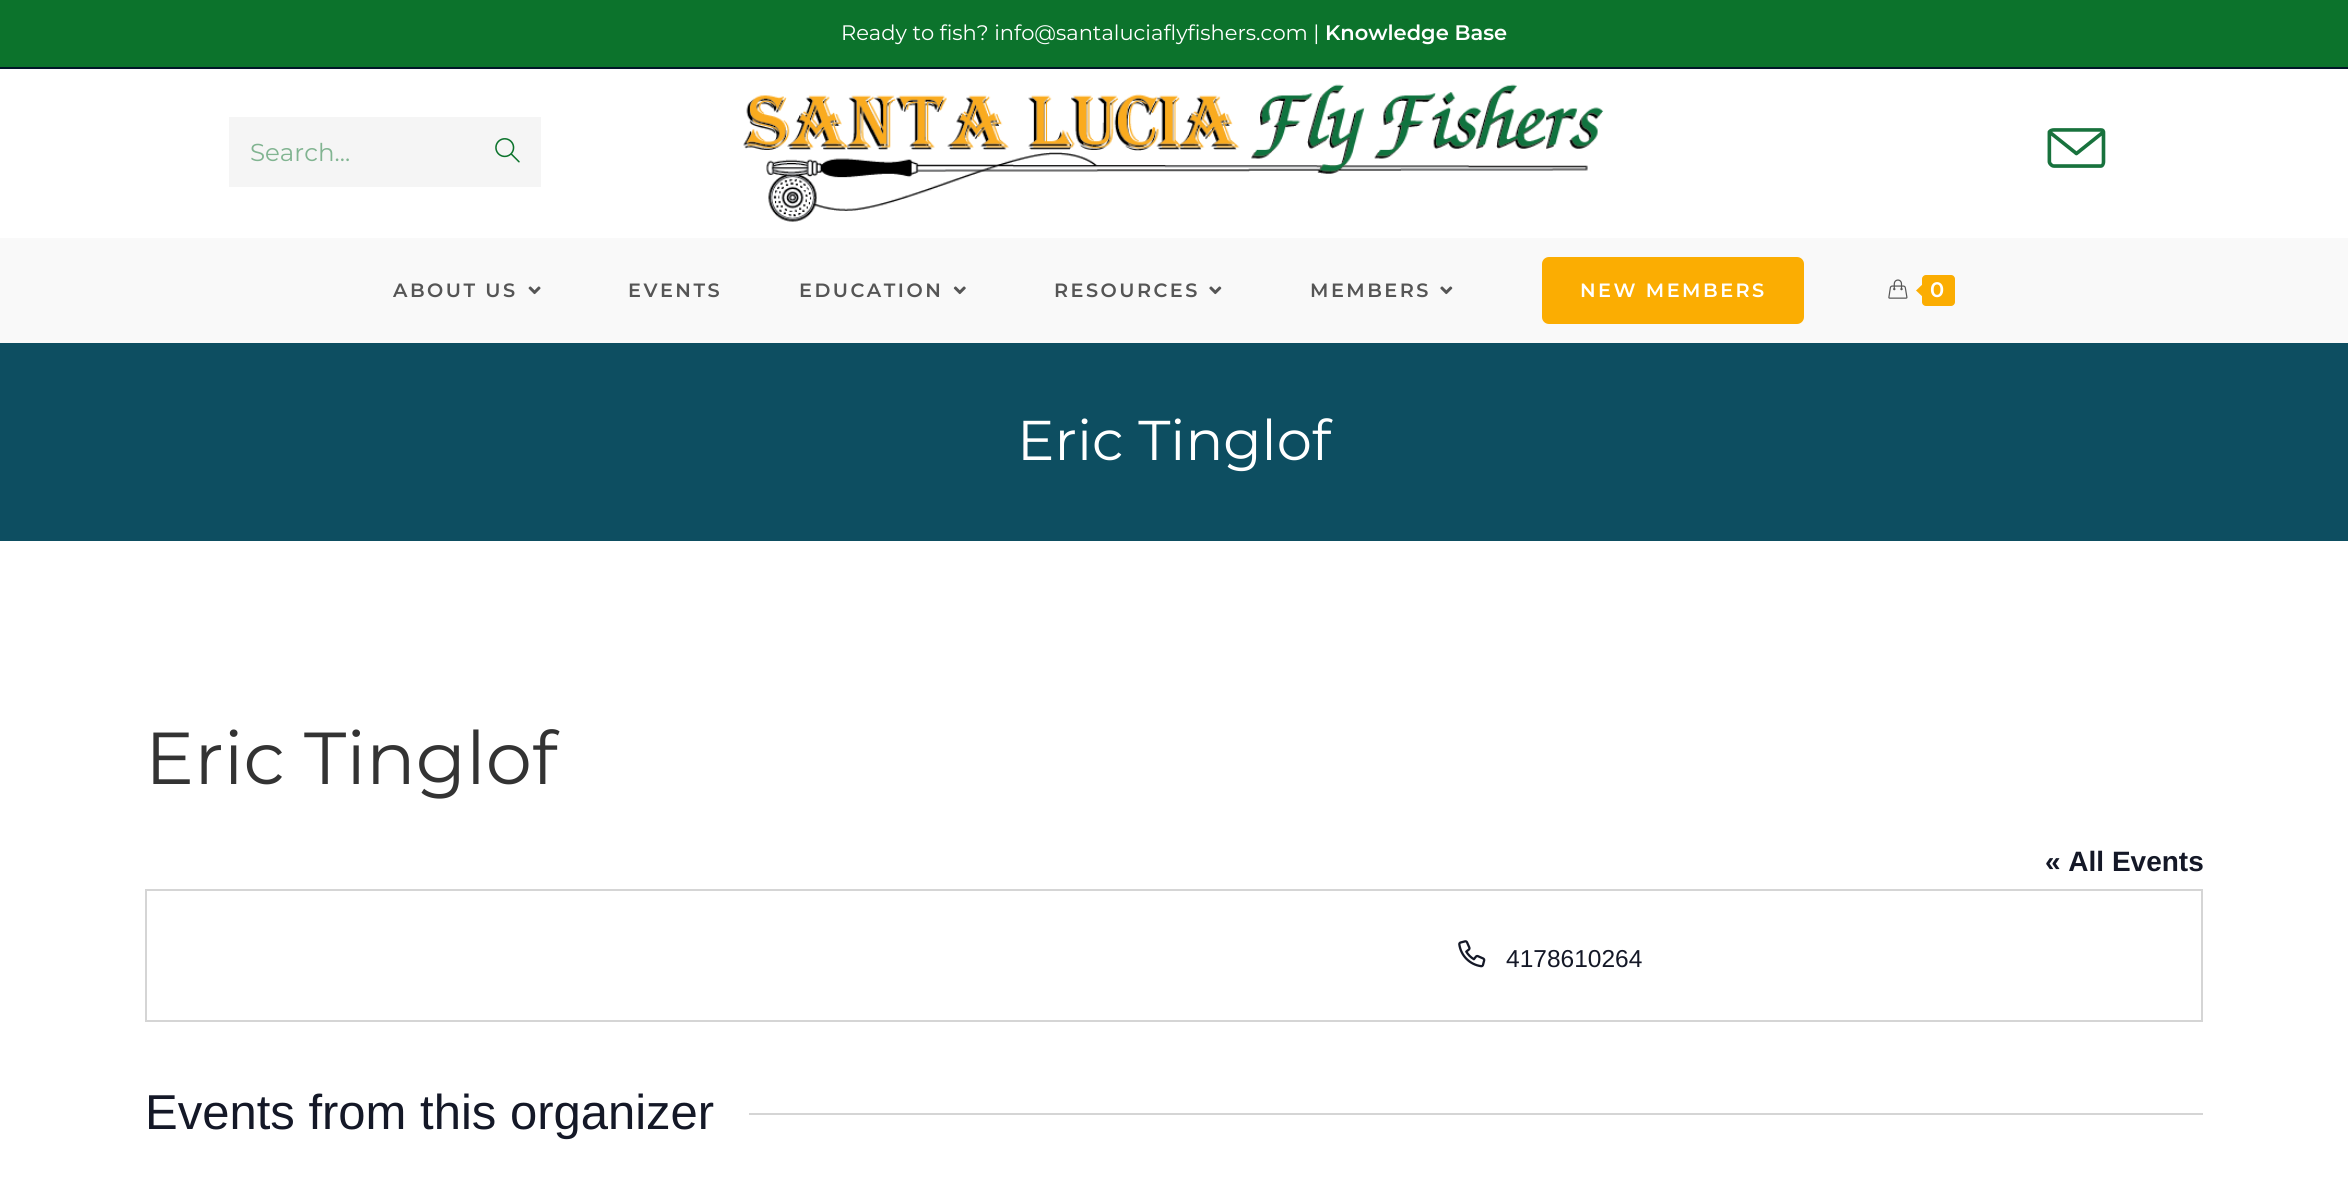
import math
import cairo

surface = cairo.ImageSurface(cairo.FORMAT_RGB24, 2348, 1197)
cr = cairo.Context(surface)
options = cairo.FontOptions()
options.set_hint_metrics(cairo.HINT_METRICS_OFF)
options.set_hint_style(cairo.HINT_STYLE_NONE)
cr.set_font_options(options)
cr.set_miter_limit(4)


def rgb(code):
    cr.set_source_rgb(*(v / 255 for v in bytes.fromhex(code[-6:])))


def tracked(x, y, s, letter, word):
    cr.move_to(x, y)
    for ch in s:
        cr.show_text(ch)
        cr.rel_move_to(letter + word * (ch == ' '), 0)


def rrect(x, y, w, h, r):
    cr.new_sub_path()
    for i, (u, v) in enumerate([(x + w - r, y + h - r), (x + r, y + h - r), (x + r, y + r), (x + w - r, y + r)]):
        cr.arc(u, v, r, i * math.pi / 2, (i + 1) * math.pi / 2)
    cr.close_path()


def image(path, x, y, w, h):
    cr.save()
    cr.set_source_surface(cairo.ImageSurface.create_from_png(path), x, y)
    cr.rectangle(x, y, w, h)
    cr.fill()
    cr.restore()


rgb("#ffffff")
cr.paint()
for x, y, w, h, color in [
    (0, 0, 2348, 67, "#0c732c"),
    (0, 67, 2348, 2, "#011628"),
    (229, 117, 312, 70, "#f5f5f5"),
]:
    rgb(color)
    cr.rectangle(x, y, w, h)
    cr.fill()
image("img/1.png", 495, 138, 25, 25)
image("img/2.png", 743, 84, 861, 138)
image("img/3.png", 2047, 128, 59, 40)
rgb("#f9f9f9")
cr.rectangle(0, 238, 2348, 105)
cr.fill()
image("img/4.png", 528, 286, 13, 9)
image("img/5.png", 953, 286, 13, 9)
image("img/6.png", 1209, 286, 13, 9)
image("img/6.png", 1440, 286, 13, 9)
rgb("#fbad02")
rrect(1542, 257, 262, 67, 7)
cr.fill()
image("img/7.png", 1888, 279, 20, 20)
rrect(1922, 275, 33, 31, 4)
cr.fill()
cr.new_path()
cr.move_to(1925, 282)
cr.line_to(1925, 299)
cr.line_to(1916, 290.5)
cr.close_path()
cr.fill()
rgb("#0d4e61")
cr.rectangle(0, 343, 2348, 198)
cr.fill()
cr.rectangle(146, 890, 2056, 131)
rgb("#d5d5d5")
cr.stroke()
image("img/8.png", 1458, 940, 28, 28)
cr.rectangle(749, 1113, 1454, 2)
cr.fill()
cr.select_font_face("Montserrat")
cr.set_font_size(21)
rgb("#ffffff")
cr.move_to(841, 40)
cr.show_text("Ready to fish? info@santaluciaflyfishers.com |")
cr.select_font_face("Montserrat SemiBold")
cr.move_to(1325, 40)
cr.show_text("Knowledge Base")
cr.select_font_face("Montserrat")
cr.set_font_size(24.5)
rgb("#81b491")
cr.move_to(250, 161)
cr.show_text("Search...")
cr.select_font_face("Montserrat SemiBold")
cr.set_font_size(19.25)
rgb("#555555")
for x, y, s in [
    (393, 297, "ABOUT US"),
    (628, 297, "EVENTS"),
    (799, 297, "EDUCATION"),
    (1054, 297, "RESOURCES"),
    (1310, 297, "MEMBERS"),
]:
    tracked(x, y, s, 2.5, 0)
rgb("#ffffff")
tracked(1580, 297, "NEW MEMBERS", 2.5, 0)
cr.set_font_size(21)
tracked(1930, 297, "0", 2.5, 0)
cr.select_font_face("Montserrat")
cr.set_font_size(56)
cr.move_to(1017, 460)
cr.show_text("Eric Tinglof")
cr.set_font_size(73.5)
rgb("#333333")
cr.move_to(145, 784)
cr.show_text("Eric Tinglof")
cr.select_font_face("Liberation Sans", cairo.FONT_SLANT_NORMAL, cairo.FONT_WEIGHT_BOLD)
cr.set_font_size(28)
rgb("#141827")
cr.move_to(2045, 871)
cr.show_text("« All Events")
cr.select_font_face("Liberation Sans")
cr.set_font_size(24.5)
cr.move_to(1506, 967)
cr.show_text("4178610264")
cr.set_font_size(49)
cr.move_to(145, 1129)
cr.show_text("Events from this organizer")
surface.write_to_png("page.png")
